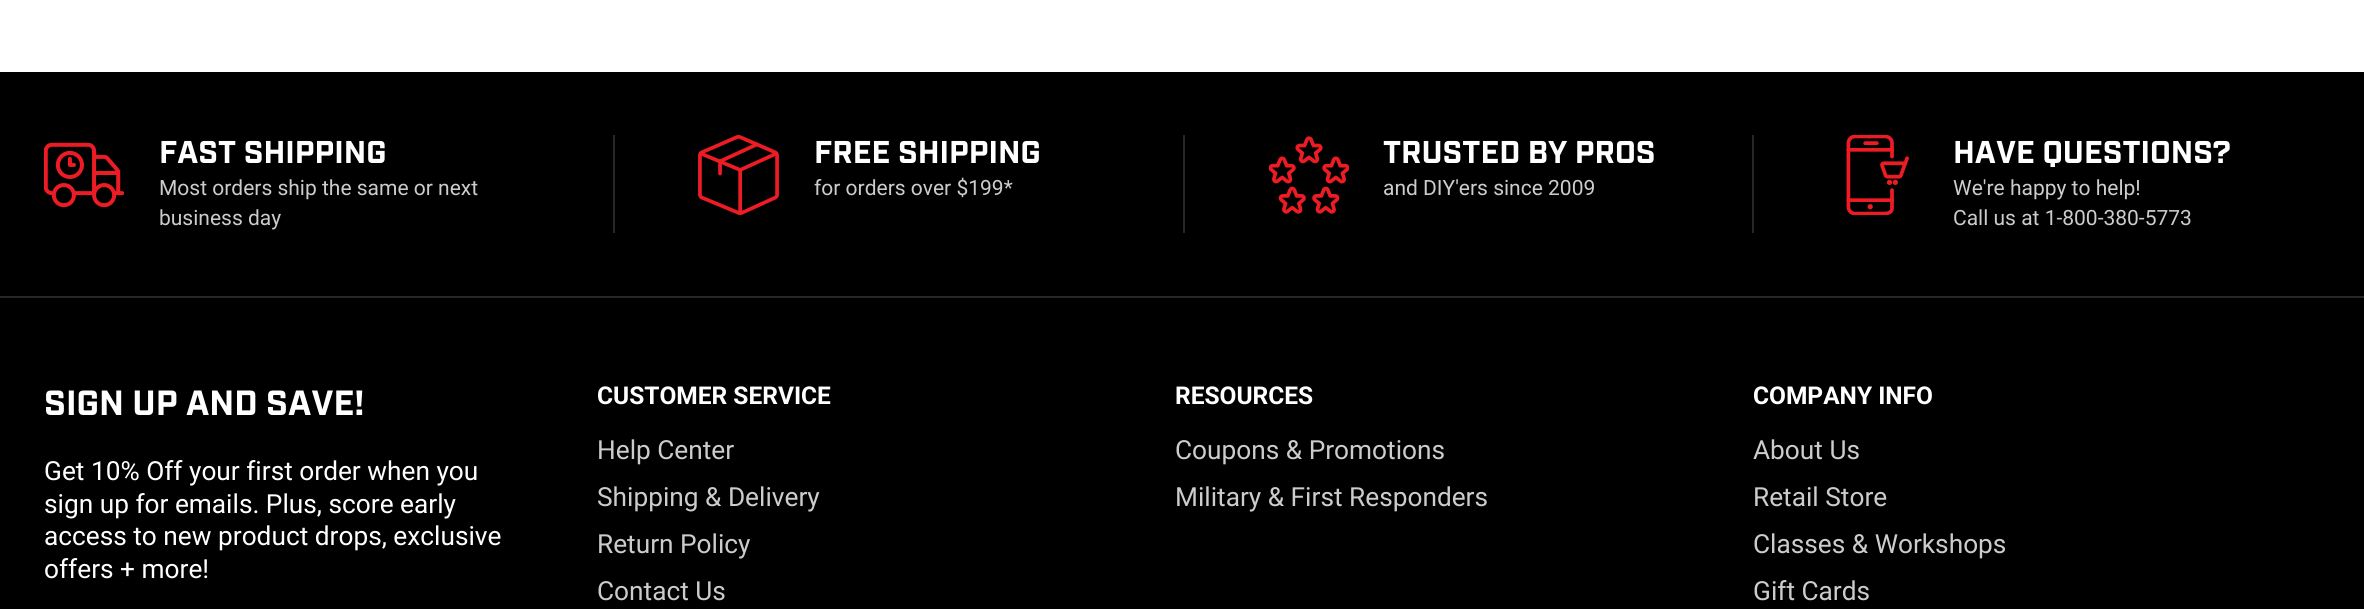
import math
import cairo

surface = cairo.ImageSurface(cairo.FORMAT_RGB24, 2364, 609)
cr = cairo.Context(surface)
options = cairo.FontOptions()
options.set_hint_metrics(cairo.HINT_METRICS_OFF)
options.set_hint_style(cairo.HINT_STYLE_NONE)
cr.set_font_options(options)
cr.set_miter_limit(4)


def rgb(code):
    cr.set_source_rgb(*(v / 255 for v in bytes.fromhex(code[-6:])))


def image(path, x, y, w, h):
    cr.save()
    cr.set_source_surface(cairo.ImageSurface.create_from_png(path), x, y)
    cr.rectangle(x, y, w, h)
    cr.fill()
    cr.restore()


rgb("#ffffff")
cr.paint()
rgb("#000000")
cr.rectangle(0, 72, 2364, 224)
cr.fill()
rgb("#272727")
cr.rectangle(0, 296, 2364, 2)
cr.fill()
image("img/1.png", 44, 142, 80, 66)
cr.rectangle(613, 135, 2, 98)
cr.fill()
image("img/2.png", 698, 135, 81, 80)
cr.rectangle(1183, 135, 2, 98)
cr.fill()
image("img/3.png", 1269, 136, 80, 78)
cr.rectangle(1752, 135, 2, 98)
cr.fill()
image("img/4.png", 1846, 135, 63, 80)
rgb("#000000")
cr.rectangle(0, 298, 2364, 311)
cr.fill()
cr.select_font_face("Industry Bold", cairo.FONT_SLANT_NORMAL, cairo.FONT_WEIGHT_BOLD)
cr.set_font_size(31.5)
rgb("#ffffff")
cr.move_to(159, 163)
cr.show_text("FAST SHIPPING")
cr.select_font_face("Roboto")
cr.set_font_size(21)
rgb("#cccccc")
cr.move_to(159, 195)
cr.show_text("Most orders ship the same or next")
cr.move_to(159, 225)
cr.show_text("business day")
cr.select_font_face("Industry Bold", cairo.FONT_SLANT_NORMAL, cairo.FONT_WEIGHT_BOLD)
cr.set_font_size(31.5)
rgb("#ffffff")
cr.move_to(814, 163)
cr.show_text("FREE SHIPPING")
cr.select_font_face("Roboto")
cr.set_font_size(21)
rgb("#cccccc")
cr.move_to(814, 195)
cr.show_text("for orders over $199*")
cr.select_font_face("Industry Bold", cairo.FONT_SLANT_NORMAL, cairo.FONT_WEIGHT_BOLD)
cr.set_font_size(31.5)
rgb("#ffffff")
cr.move_to(1383, 163)
cr.show_text("TRUSTED BY PROS")
cr.select_font_face("Roboto")
cr.set_font_size(21)
rgb("#cccccc")
cr.move_to(1383, 195)
cr.show_text("and DIY'ers since 2009")
cr.select_font_face("Industry Bold", cairo.FONT_SLANT_NORMAL, cairo.FONT_WEIGHT_BOLD)
cr.set_font_size(31.5)
rgb("#ffffff")
cr.move_to(1953, 163)
cr.show_text("HAVE QUESTIONS?")
cr.select_font_face("Roboto")
cr.set_font_size(21)
rgb("#cccccc")
cr.move_to(1953, 195)
cr.show_text("We're happy to help!")
cr.move_to(1953, 225)
cr.show_text("Call us at 1-800-380-5773")
cr.select_font_face("Industry Bold", cairo.FONT_SLANT_NORMAL, cairo.FONT_WEIGHT_BOLD)
cr.set_font_size(35)
rgb("#ffffff")
cr.move_to(44, 415)
cr.show_text("SIGN UP AND SAVE!")
cr.select_font_face("Roboto")
cr.set_font_size(26.25)
for x, y, s in [
    (44, 480, "Get 10% Off your first order when you"),
    (44, 513, "sign up for emails. Plus, score early"),
    (44, 545, "access to new product drops, exclusive"),
    (44, 578, "offers + more!"),
]:
    cr.move_to(x, y)
    cr.show_text(s)
cr.select_font_face("Roboto", cairo.FONT_SLANT_NORMAL, cairo.FONT_WEIGHT_BOLD)
cr.set_font_size(24.5)
cr.move_to(597, 404)
cr.show_text("CUSTOMER SERVICE")
cr.select_font_face("Roboto")
cr.set_font_size(26.25)
rgb("#cccccc")
for x, y, s in [
    (597, 459, "Help Center"),
    (597, 506, "Shipping & Delivery"),
    (597, 553, "Return Policy"),
    (597, 600, "Contact Us"),
]:
    cr.move_to(x, y)
    cr.show_text(s)
cr.select_font_face("Roboto", cairo.FONT_SLANT_NORMAL, cairo.FONT_WEIGHT_BOLD)
cr.set_font_size(24.5)
rgb("#ffffff")
cr.move_to(1175, 404)
cr.show_text("RESOURCES")
cr.select_font_face("Roboto")
cr.set_font_size(26.25)
rgb("#cccccc")
cr.move_to(1175, 459)
cr.show_text("Coupons & Promotions")
cr.move_to(1175, 506)
cr.show_text("Military & First Responders")
cr.select_font_face("Roboto", cairo.FONT_SLANT_NORMAL, cairo.FONT_WEIGHT_BOLD)
cr.set_font_size(24.5)
rgb("#ffffff")
cr.move_to(1753, 404)
cr.show_text("COMPANY INFO")
cr.select_font_face("Roboto")
cr.set_font_size(26.25)
rgb("#cccccc")
for x, y, s in [
    (1753, 459, "About Us"),
    (1753, 506, "Retail Store"),
    (1753, 553, "Classes & Workshops"),
    (1753, 600, "Gift Cards"),
]:
    cr.move_to(x, y)
    cr.show_text(s)
surface.write_to_png("page.png")
